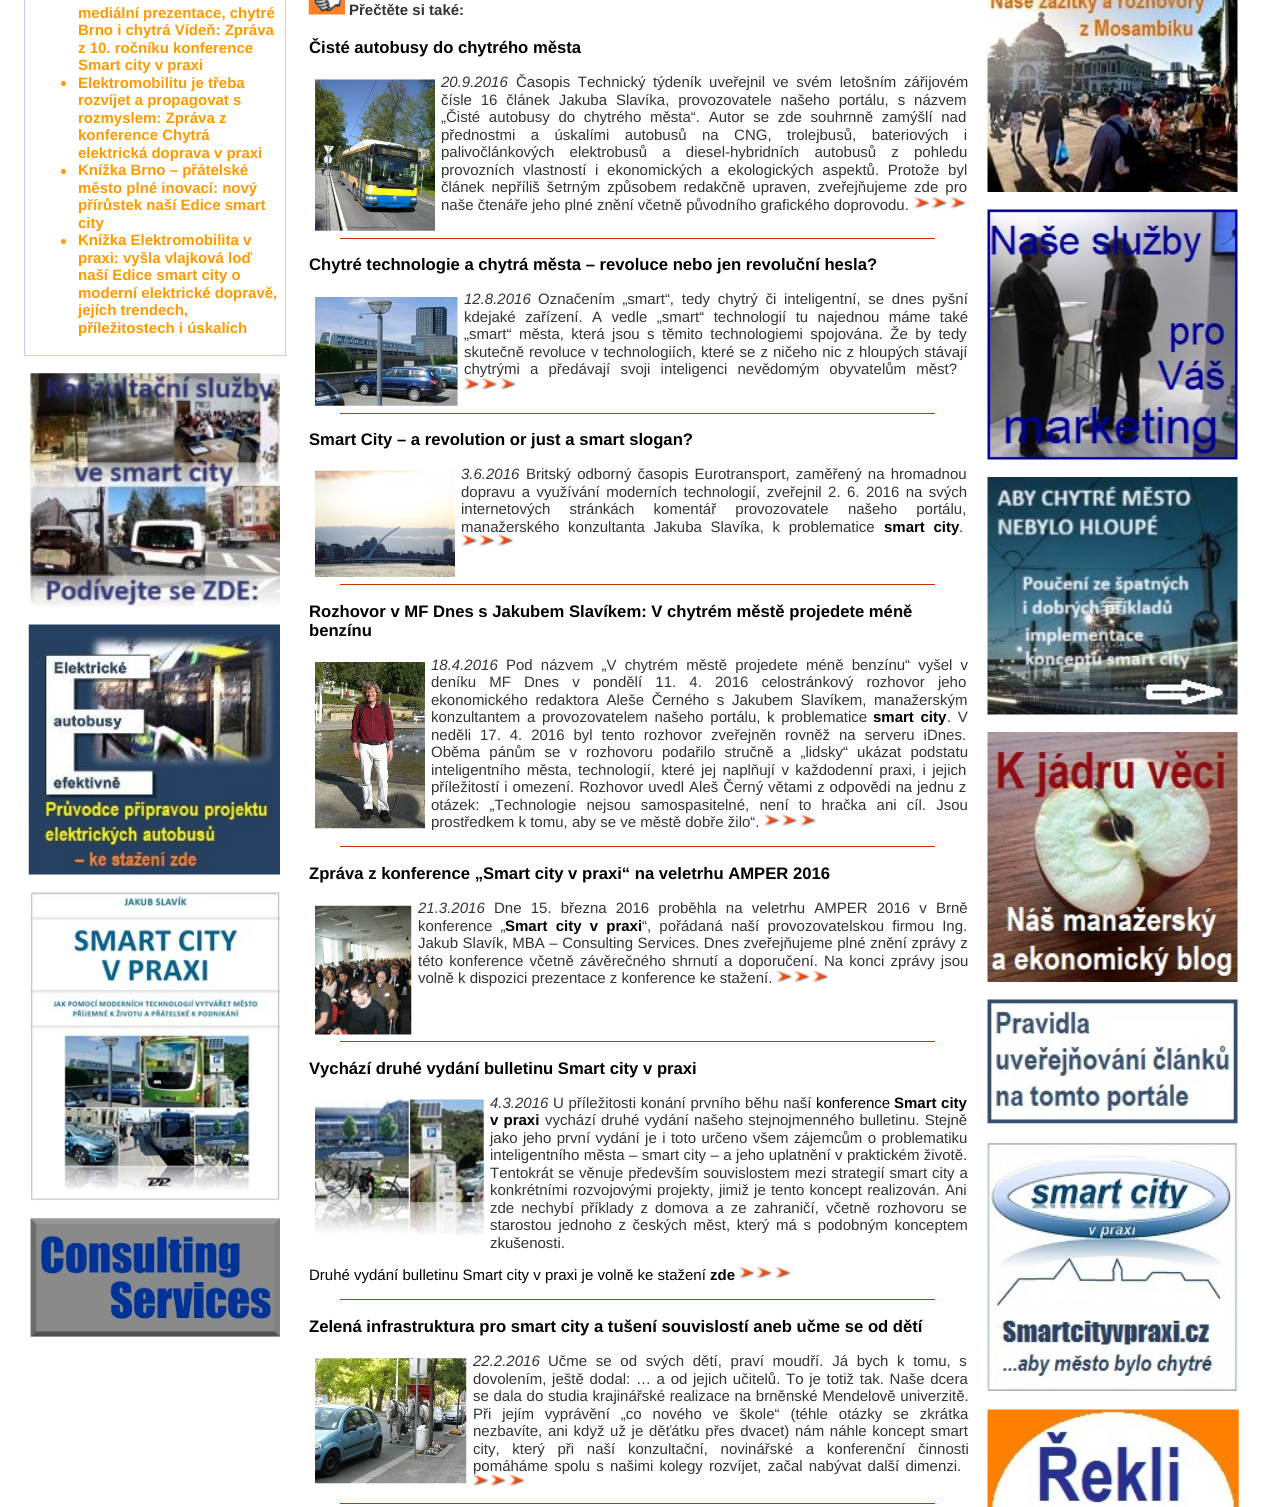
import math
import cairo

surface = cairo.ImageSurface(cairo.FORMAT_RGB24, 1265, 1507)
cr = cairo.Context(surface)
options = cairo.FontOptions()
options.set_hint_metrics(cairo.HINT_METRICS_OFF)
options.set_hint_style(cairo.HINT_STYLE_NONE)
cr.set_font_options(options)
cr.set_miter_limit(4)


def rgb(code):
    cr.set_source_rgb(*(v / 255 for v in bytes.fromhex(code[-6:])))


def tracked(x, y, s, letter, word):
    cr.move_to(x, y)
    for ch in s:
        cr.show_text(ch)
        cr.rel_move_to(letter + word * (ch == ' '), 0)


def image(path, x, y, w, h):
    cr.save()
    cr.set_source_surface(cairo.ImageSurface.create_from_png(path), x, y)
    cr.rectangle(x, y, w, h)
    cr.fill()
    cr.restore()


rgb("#ffffff")
cr.paint()
cr.rectangle(24.5, -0.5, 261, 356)
rgb("#bed0fc")
cr.set_line_width(1)
cr.stroke()
rgb("#ff9900")
cr.arc(63.5, 83.5, 2.5, 0, 2 * math.pi)
cr.fill()
cr.arc(63.5, 171.5, 2.5, 0, 2 * math.pi)
cr.fill()
cr.arc(63.5, 241.5, 2.5, 0, 2 * math.pi)
cr.fill()
image("img/1.png", 30, 373, 250, 234)
image("img/2.png", 28, 624, 252, 251)
image("img/3.png", 30, 892, 250, 309)
image("img/4.png", 30, 1218, 250, 119)
image("img/5.png", 308, 0, 37, 15)
image("img/6.png", 315, 79, 120, 152)
image("img/7.png", 913, 197, 54, 13)
rgb("#cc3300")
cr.rectangle(340, 238, 595, 1)
cr.fill()
image("img/8.png", 315, 297, 143, 109)
image("img/9.png", 463, 378, 53, 13)
cr.rectangle(340, 413, 595, 1)
cr.fill()
image("img/10.png", 315, 470, 140, 107)
cr.rectangle(340, 584, 595, 1)
cr.fill()
image("img/12.png", 315, 662, 110, 167)
image("img/13.png", 763, 814, 54, 13)
cr.rectangle(340, 846, 595, 1)
cr.fill()
image("img/14.png", 315, 905, 97, 130)
image("img/15.png", 776, 970, 53, 13)
cr.rectangle(340, 1041, 595, 1)
cr.fill()
image("img/16.png", 315, 1099, 169, 136)
image("img/17.png", 738, 1267, 54, 13)
cr.rectangle(340, 1299, 595, 1)
cr.fill()
image("img/18.png", 315, 1358, 152, 126)
cr.rectangle(340, 1503, 595, 1)
cr.fill()
image("img/20.png", 987, 0, 251, 192)
image("img/21.png", 987, 209, 251, 251)
image("img/22.png", 987, 477, 251, 238)
image("img/23.png", 987, 732, 251, 250)
image("img/24.png", 987, 999, 251, 125)
image("img/25.png", 987, 1141, 251, 251)
image("img/26.png", 987, 1409, 252, 98)
cr.select_font_face("Liberation Sans", cairo.FONT_SLANT_NORMAL, cairo.FONT_WEIGHT_BOLD)
cr.set_font_size(15)
rgb("#ff9900")
for x, y, s in [
    (78, 18, "mediální prezentace, chytré"),
    (78, 35, "Brno i chytrá Vídeň: Zpráva"),
    (78, 53, "z 10. ročníku konference"),
    (78, 70, "Smart city v praxi"),
    (78, 88, "Elektromobilitu je třeba"),
    (78, 105, "rozvíjet a propagovat s"),
    (78, 123, "rozmyslem: Zpráva z"),
    (78, 140, "konference Chytrá"),
    (78, 158, "elektrická doprava v praxi"),
    (78, 175, "Knížka Brno – přátelské"),
    (78, 193, "město plné inovací: nový"),
    (78, 210, "přírůstek naší Edice smart"),
    (78, 228, "city"),
    (78, 245, "Knížka Elektromobilita v"),
    (78, 263, "praxi: vyšla vlajková loď"),
    (78, 280, "naší Edice smart city o"),
    (78, 298, "moderní elektrické dopravě,"),
    (78, 315, "jejích trendech,"),
    (78, 333, "příležitostech i úskalích"),
]:
    cr.move_to(x, y)
    cr.show_text(s)
rgb("#333333")
cr.move_to(349, 15)
cr.show_text("Přečtěte si také:")
cr.set_font_size(16.65)
rgb("#000000")
cr.move_to(309, 53)
cr.show_text("Čisté autobusy do chytrého města")
cr.select_font_face("Liberation Sans", cairo.FONT_SLANT_ITALIC)
cr.set_font_size(15)
rgb("#333333")
cr.move_to(441, 87)
cr.show_text("20.9.2016")
cr.select_font_face("Liberation Sans")
tracked(516, 87, "Časopis Technický týdeník uveřejnil ve svém letošním zářijovém", 0, 3.5)
tracked(441, 105, "čísle 16 článek Jakuba Slavíka, provozovatele našeho portálu, s názvem", 0, 4.75)
tracked(441, 122, "„Čisté autobusy do chytrého města“. Autor se zde souhrnně zamýšlí nad", 0, 4.5)
tracked(441, 140, "přednostmi a úskalími autobusů na CNG, trolejbusů, bateriových i", 0, 11.25)
tracked(441, 157, "palivočlánkových elektrobusů a diesel-hybridních autobusů z pohledu", 0, 11)
tracked(441, 175, "provozních vlastností i ekonomických a ekologických aspektů. Protože byl", 0, 4.5)
tracked(441, 192, "článek nepříliš šetrným způsobem redakčně upraven, zveřejňujeme zde pro", 0, 2.9)
cr.move_to(441, 210)
cr.show_text("naše čtenáře jeho plné znění včetně původního grafického doprovodu.")
cr.select_font_face("Liberation Sans", cairo.FONT_SLANT_NORMAL, cairo.FONT_WEIGHT_BOLD)
cr.set_font_size(16.65)
rgb("#000000")
cr.move_to(309, 270)
cr.show_text("Chytré technologie a chytrá města – revoluce nebo jen revoluční hesla?")
cr.select_font_face("Liberation Sans", cairo.FONT_SLANT_ITALIC)
cr.set_font_size(15)
rgb("#333333")
cr.move_to(464, 304)
cr.show_text("12.8.2016")
cr.select_font_face("Liberation Sans")
tracked(538, 304, "Označením „smart“, tedy chytrý či inteligentní, se dnes pyšní", 0, 3.5)
tracked(464, 322, "kdejaké zařízení. A vedle „smart“ technologií tu najednou máme také", 0, 5.25)
tracked(464, 339, "„smart“ města, která jsou s těmito technologiemi spojována. Že by tedy", 0, 3.25)
tracked(464, 357, "skutečně revoluce v technologiích, které se z ničeho nic z hloupých stávají", 0, 0.9)
tracked(464, 374, "chytrými a předávají svoji inteligenci nevědomým obyvatelům měst?", 0, 6)
cr.select_font_face("Liberation Sans", cairo.FONT_SLANT_NORMAL, cairo.FONT_WEIGHT_BOLD)
cr.set_font_size(16.65)
rgb("#000000")
cr.move_to(309, 445)
cr.show_text("Smart City – a revolution or just a smart slogan?")
cr.select_font_face("Liberation Sans", cairo.FONT_SLANT_ITALIC)
cr.set_font_size(15)
rgb("#333333")
cr.move_to(461, 479)
cr.show_text("3.6.2016")
cr.select_font_face("Liberation Sans")
tracked(526, 479, "Britský odborný časopis Eurotransport, zaměřený na hromadnou", 0, 2)
tracked(461, 497, "dopravu a využívání moderních technologií, zveřejnil 2. 6. 2016 na svých", 0, 2.25)
tracked(461, 514, "internetových stránkách komentář provozovatele našeho portálu,", 0, 15)
tracked(461, 532, "manažerského konzultanta Jakuba Slavíka, k problematice", 0, 4.5)
cr.select_font_face("Liberation Sans", cairo.FONT_SLANT_NORMAL, cairo.FONT_WEIGHT_BOLD)
rgb("#000000")
tracked(884, 532, "smart city", 0, 4.5)
cr.select_font_face("Liberation Sans")
rgb("#333333")
cr.move_to(959, 532)
cr.show_text(".")
image("img/11.png", 461, 534, 53, 13)
cr.select_font_face("Liberation Sans", cairo.FONT_SLANT_NORMAL, cairo.FONT_WEIGHT_BOLD)
cr.set_font_size(16.65)
rgb("#000000")
cr.move_to(309, 617)
cr.show_text("Rozhovor v MF Dnes s Jakubem Slavíkem: V chytrém městě projedete méně")
cr.move_to(309, 636)
cr.show_text("benzínu")
cr.select_font_face("Liberation Sans", cairo.FONT_SLANT_ITALIC)
cr.set_font_size(15)
rgb("#333333")
cr.move_to(431, 670)
cr.show_text("18.4.2016")
cr.select_font_face("Liberation Sans")
tracked(506, 670, "Pod názvem „V chytrém městě projedete méně benzínu“ vyšel v", 0, 4)
tracked(431, 687, "deníku MF Dnes v pondělí 11. 4. 2016 celostránkový rozhovor jeho", 0, 9)
tracked(431, 705, "ekonomického redaktora Aleše Černého s Jakubem Slavíkem, manažerským", 0, 3.5)
tracked(431, 722, "konzultantem a provozovatelem našeho portálu, k problematice", 0, 2.5)
cr.select_font_face("Liberation Sans", cairo.FONT_SLANT_NORMAL, cairo.FONT_WEIGHT_BOLD)
rgb("#000000")
tracked(873, 722, "smart city", 0, 2.5)
cr.select_font_face("Liberation Sans")
rgb("#333333")
tracked(947, 722, ". V", 0, 2.5)
tracked(431, 740, "neděli 17. 4. 2016 byl tento rozhovor zveřejněn rovněž na serveru iDnes.", 0, 4.75)
tracked(431, 757, "Oběma pánům se v rozhovoru podařilo stručně a „lidsky“ ukázat podstatu", 0, 5)
tracked(431, 775, "inteligentního města, technologií, které jej naplňují v každodenní praxi, i jejich", 0, 2.25)
tracked(431, 792, "příležitostí i omezení. Rozhovor uvedl Aleš Černý větami z odpovědi na jednu z", 0, 0.75)
tracked(431, 810, "otázek: „Technologie nejsou samospasitelné, není to hračka ani cíl. Jsou", 0, 6)
cr.move_to(431, 827)
cr.show_text("prostředkem k tomu, aby se ve městě dobře žilo“.")
cr.select_font_face("Liberation Sans", cairo.FONT_SLANT_NORMAL, cairo.FONT_WEIGHT_BOLD)
cr.set_font_size(16.65)
rgb("#000000")
cr.move_to(309, 879)
cr.show_text("Zpráva z konference „Smart city v praxi“ na veletrhu AMPER 2016")
cr.select_font_face("Liberation Sans", cairo.FONT_SLANT_ITALIC)
cr.set_font_size(15)
rgb("#333333")
cr.move_to(418, 913)
cr.show_text("21.3.2016")
cr.select_font_face("Liberation Sans")
tracked(494, 913, "Dne 15. března 2016 proběhla na veletrhu AMPER 2016 v Brně", 0, 5)
tracked(418, 931, "konference „", 0, 4)
cr.select_font_face("Liberation Sans", cairo.FONT_SLANT_NORMAL, cairo.FONT_WEIGHT_BOLD)
rgb("#000000")
tracked(505, 931, "Smart city v praxi", 0, 4)
cr.select_font_face("Liberation Sans")
rgb("#333333")
tracked(642, 931, "“, pořádaná naší provozovatelskou firmou Ing.", 0, 4)
tracked(418, 948, "Jakub Slavík, MBA – Consulting Services. Dnes zveřejňujeme plné znění zprávy z", 0, 0.4)
tracked(418, 966, "této konference včetně závěrečného shrnutí a doporučení. Na konci zprávy jsou", 0, 2)
cr.move_to(418, 983)
cr.show_text("volně k dispozici prezentace z konference ke stažení.")
cr.select_font_face("Liberation Sans", cairo.FONT_SLANT_NORMAL, cairo.FONT_WEIGHT_BOLD)
cr.set_font_size(16.65)
rgb("#000000")
cr.move_to(309, 1074)
cr.show_text("Vychází druhé vydání bulletinu Smart city v praxi")
cr.select_font_face("Liberation Sans", cairo.FONT_SLANT_ITALIC)
cr.set_font_size(15)
rgb("#333333")
cr.move_to(490, 1108)
cr.show_text("4.3.2016")
cr.select_font_face("Liberation Sans")
tracked(553, 1108, "U příležitosti konání prvního běhu naší", 0, 0.5)
rgb("#000000")
cr.move_to(816, 1108)
cr.show_text("konference")
cr.select_font_face("Liberation Sans", cairo.FONT_SLANT_NORMAL, cairo.FONT_WEIGHT_BOLD)
tracked(894, 1108, "Smart city", 0, 0.4)
tracked(490, 1125, "v praxi", 0, 1)
cr.select_font_face("Liberation Sans")
rgb("#333333")
tracked(545, 1125, "vychází druhé vydání našeho stejnojmenného bulletinu. Stejně", 0, 1)
tracked(490, 1143, "jako jeho první vydání je i toto určeno všem zájemcům o problematiku", 0, 1.25)
tracked(490, 1160, "inteligentního města – smart city – a jeho uplatnění v praktickém životě.", 0, 0.25)
tracked(490, 1178, "Tentokrát se věnuje především souvislostem mezi strategií smart city a", 0, 0.75)
tracked(490, 1195, "konkrétními rozvojovými projekty, jimiž je tento koncept realizován. Ani", 0, 1)
tracked(490, 1213, "zde nechybí příklady z domova a ze zahraničí, včetně rozhovoru se", 0, 2.9)
tracked(490, 1230, "starostou jednoho z českých měst, který má s podobným konceptem", 0, 2.5)
cr.move_to(490, 1248)
cr.show_text("zkušenosti.")
rgb("#000000")
cr.move_to(309, 1280)
cr.show_text("Druhé vydání bulletinu Smart city v praxi je volně ke stažení")
cr.select_font_face("Liberation Sans", cairo.FONT_SLANT_NORMAL, cairo.FONT_WEIGHT_BOLD)
cr.move_to(710, 1280)
cr.show_text("zde")
cr.set_font_size(16.65)
cr.move_to(309, 1332)
cr.show_text("Zelená infrastruktura pro smart city a tušení souvislostí aneb učme se od dětí")
cr.select_font_face("Liberation Sans", cairo.FONT_SLANT_ITALIC)
cr.set_font_size(15)
rgb("#333333")
cr.move_to(473, 1366)
cr.show_text("22.2.2016")
cr.select_font_face("Liberation Sans")
tracked(548, 1366, "Učme se od svých dětí, praví moudří. Já bych k tomu, s", 0, 4.5)
tracked(473, 1384, "dovolením, ještě dodal: … a od jejich učitelů. To je totiž tak. Naše dcera", 0, 1.5)
tracked(473, 1401, "se dala do studia krajinářské realizace na brněnské Mendelově univerzitě.", 0, 0.5)
tracked(473, 1419, "Při jejím vyprávění „co nového ve škole“ (téhle otázky se zkrátka", 0, 6.75)
tracked(473, 1436, "nezbavíte, ani když už je děťátku přes dvacet) nám náhle koncept smart", 0, 1.5)
tracked(473, 1454, "city, který při naší konzultační, novinářské a konferenční činnosti", 0, 8.5)
tracked(473, 1471, "pomáháme spolu s našimi kolegy rozvíjet, začal nabývat další dimenzi.", 0, 2)
image("img/19.png", 472, 1474, 53, 13)
surface.write_to_png("page.png")
